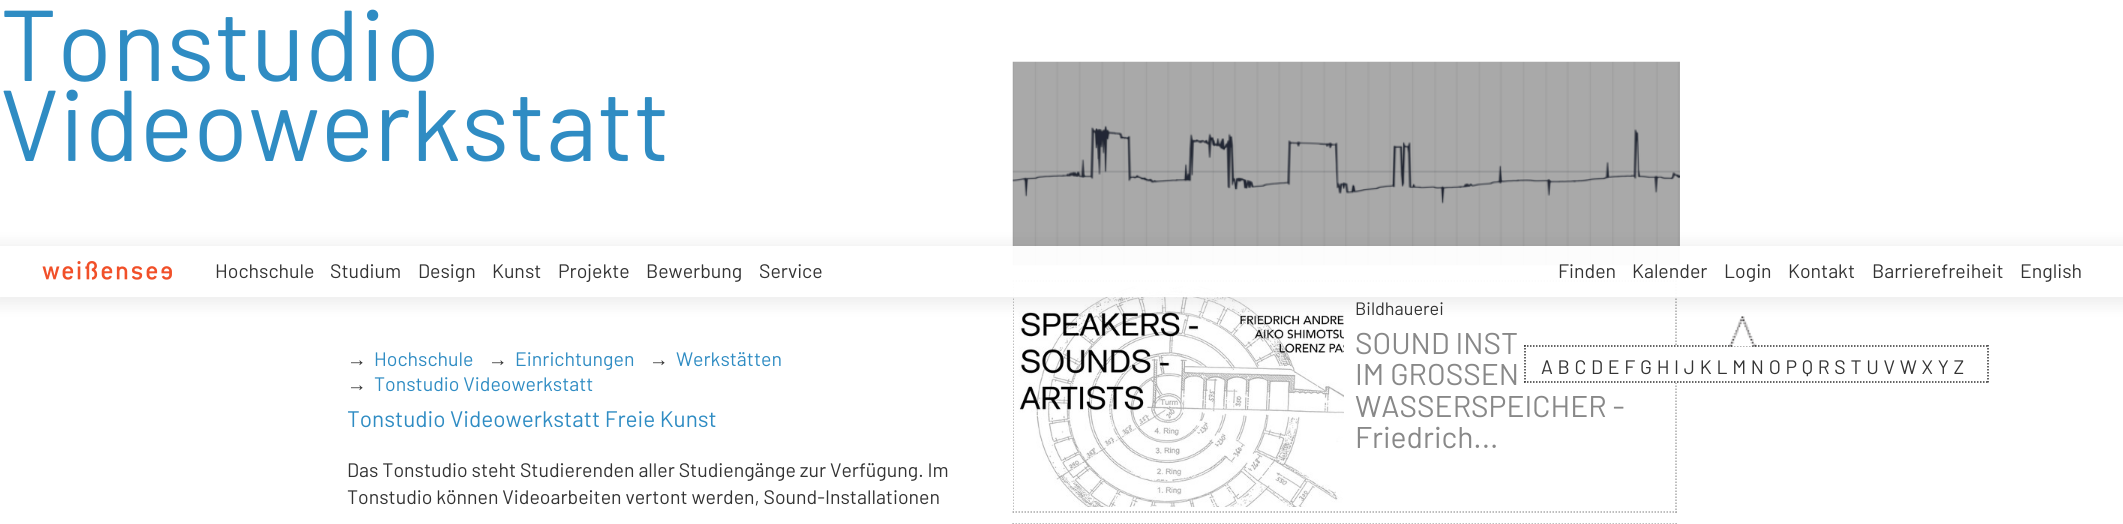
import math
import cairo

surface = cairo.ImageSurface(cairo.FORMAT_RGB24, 2123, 524)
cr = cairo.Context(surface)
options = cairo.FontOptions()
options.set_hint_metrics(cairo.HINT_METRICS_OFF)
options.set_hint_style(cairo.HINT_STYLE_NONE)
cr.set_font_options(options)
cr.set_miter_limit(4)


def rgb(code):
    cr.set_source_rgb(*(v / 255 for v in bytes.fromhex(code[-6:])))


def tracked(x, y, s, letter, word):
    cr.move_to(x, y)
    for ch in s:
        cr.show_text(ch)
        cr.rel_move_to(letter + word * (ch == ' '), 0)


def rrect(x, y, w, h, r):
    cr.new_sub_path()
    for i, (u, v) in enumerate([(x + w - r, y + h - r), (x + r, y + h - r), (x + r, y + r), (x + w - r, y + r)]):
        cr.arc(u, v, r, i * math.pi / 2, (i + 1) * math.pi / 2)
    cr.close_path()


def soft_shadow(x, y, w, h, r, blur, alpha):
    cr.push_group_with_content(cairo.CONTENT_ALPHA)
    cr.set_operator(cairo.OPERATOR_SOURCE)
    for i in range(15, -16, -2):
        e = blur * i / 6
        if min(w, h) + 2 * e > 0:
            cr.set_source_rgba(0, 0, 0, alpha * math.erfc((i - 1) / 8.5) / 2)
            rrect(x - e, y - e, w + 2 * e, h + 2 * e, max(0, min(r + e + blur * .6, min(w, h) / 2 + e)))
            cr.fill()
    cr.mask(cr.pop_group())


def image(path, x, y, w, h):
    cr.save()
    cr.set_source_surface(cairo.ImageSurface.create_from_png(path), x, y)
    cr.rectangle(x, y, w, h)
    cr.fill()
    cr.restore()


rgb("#ffffff")
cr.paint()
cr.new_path()
cr.move_to(1012.5, 281)
cr.line_to(1677, 281)
rgb("#aaaaaa")
cr.set_line_width(1.5)
cr.set_dash([1.5, 1.5])
cr.stroke()
cr.new_path()
cr.move_to(1676, 280.5)
cr.line_to(1676, 513)
cr.stroke()
rgb("#ffffff")
cr.rectangle(1675, 346, 2, 37)
cr.fill()
cr.new_path()
cr.move_to(1524, 346)
cr.line_to(1989, 346)
rgb("#333333")
cr.stroke()
cr.new_path()
cr.move_to(1988, 345)
cr.line_to(1988, 382.5)
cr.stroke()
cr.new_path()
cr.move_to(1524, 382)
cr.line_to(1989, 382)
cr.stroke()
cr.new_path()
cr.move_to(1525, 345)
cr.line_to(1525, 382.5)
cr.stroke()
image("img/2.png", 1012, 61, 668, 205)
cr.new_path()
cr.move_to(1012.5, 512)
cr.line_to(1677, 512)
rgb("#aaaaaa")
cr.stroke()
cr.save()
cr.rectangle(1013, 62, 673, 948)
cr.clip()
cr.new_path()
cr.move_to(1013, 280.5)
cr.line_to(1013, 513)
cr.stroke()
cr.restore()
image("img/3.png", 1018, 286, 326, 221)
cr.save()
cr.set_fill_rule(cairo.FILL_RULE_EVEN_ODD)
cr.new_path()
cr.move_to(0, 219)
cr.line_to(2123, 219)
cr.line_to(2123, 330)
cr.line_to(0, 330)
cr.close_path()
cr.move_to(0, 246)
cr.line_to(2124, 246)
cr.line_to(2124, 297)
cr.line_to(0, 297)
cr.close_path()
cr.clip()
rgb("#121212")
soft_shadow(-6, 243, 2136, 63, 0, 7.5, 0.07)
cr.restore()
image("img/1.png", 1729, 316, 28, 31)
cr.new_path()
cr.move_to(1012.5, 524)
cr.line_to(1677, 524)
cr.stroke()
cr.new_path()
cr.move_to(1676, 523.5)
cr.line_to(1676, 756)
cr.stroke()
cr.new_path()
cr.move_to(1013, 523.5)
cr.line_to(1013, 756)
cr.stroke()
cr.set_source_rgba(1, 1, 1, 0.96)
cr.rectangle(1012, 246, 668, 51)
cr.fill()
image("img/4.png", 42, 261, 130, 19)
cr.select_font_face("Barlow")
cr.set_font_size(100.5)
rgb("#2f8cc3")
cr.move_to(0, 81)
cr.show_text("Tonstudio")
cr.move_to(0, 161)
cr.show_text("Videowerkstatt")
cr.select_font_face("Liberation Sans")
cr.set_font_size(19.5)
rgb("#333333")
cr.move_to(347, 366)
cr.show_text("→")
cr.select_font_face("Barlow")
rgb("#2f8cc3")
cr.move_to(374, 366)
cr.show_text("Hochschule")
cr.select_font_face("Liberation Sans")
rgb("#333333")
cr.move_to(488, 366)
cr.show_text("→")
cr.select_font_face("Barlow")
rgb("#2f8cc3")
cr.move_to(515, 366)
cr.show_text("Einrichtungen")
cr.select_font_face("Liberation Sans")
rgb("#333333")
cr.move_to(649, 366)
cr.show_text("→")
cr.select_font_face("Barlow")
rgb("#2f8cc3")
cr.move_to(676, 366)
cr.show_text("Werkstätten")
cr.select_font_face("Liberation Sans")
rgb("#333333")
cr.move_to(347, 391)
cr.show_text("→")
cr.select_font_face("Barlow")
rgb("#2f8cc3")
cr.move_to(374, 391)
cr.show_text("Tonstudio Videowerkstatt")
rgb("#333333")
tracked(1541, 374, "A B C D E F G H I J K L M N O P Q R S T U V W X Y Z", 0.4, 0)
cr.set_font_size(22.5)
rgb("#2f8cc3")
cr.move_to(347, 427)
cr.show_text("Tonstudio Videowerkstatt Freie Kunst")
cr.set_font_size(19.5)
rgb("#333333")
cr.move_to(347, 477)
cr.show_text("Das Tonstudio steht Studierenden aller Studiengänge zur Verfügung. Im")
cr.move_to(347, 504)
cr.show_text("Tonstudio können Videoarbeiten vertont werden, Sound-Installationen")
cr.set_font_size(18)
cr.move_to(1355, 315)
cr.show_text("Bildhauerei")
cr.set_font_size(30)
rgb("#888888")
for x, y, s in [
    (1355, 354, "SOUND INST"),
    (1355, 385, "IM GROSSEN"),
    (1355, 417, "WASSERSPEICHER -"),
    (1355, 448, "Friedrich..."),
]:
    cr.move_to(x, y)
    cr.show_text(s)
cr.set_font_size(19.5)
rgb("#333333")
for x, y, s in [
    (215, 278, "Hochschule"),
    (330, 278, "Studium"),
    (418, 278, "Design"),
    (492, 278, "Kunst"),
    (558, 278, "Projekte"),
    (646, 278, "Bewerbung"),
    (759, 278, "Service"),
    (1558, 278, "Finden"),
    (1632, 278, "Kalender"),
    (1724, 278, "Login"),
    (1788, 278, "Kontakt"),
    (1872, 278, "Barrierefreiheit"),
    (2020, 278, "English"),
]:
    cr.move_to(x, y)
    cr.show_text(s)
surface.write_to_png("page.png")
